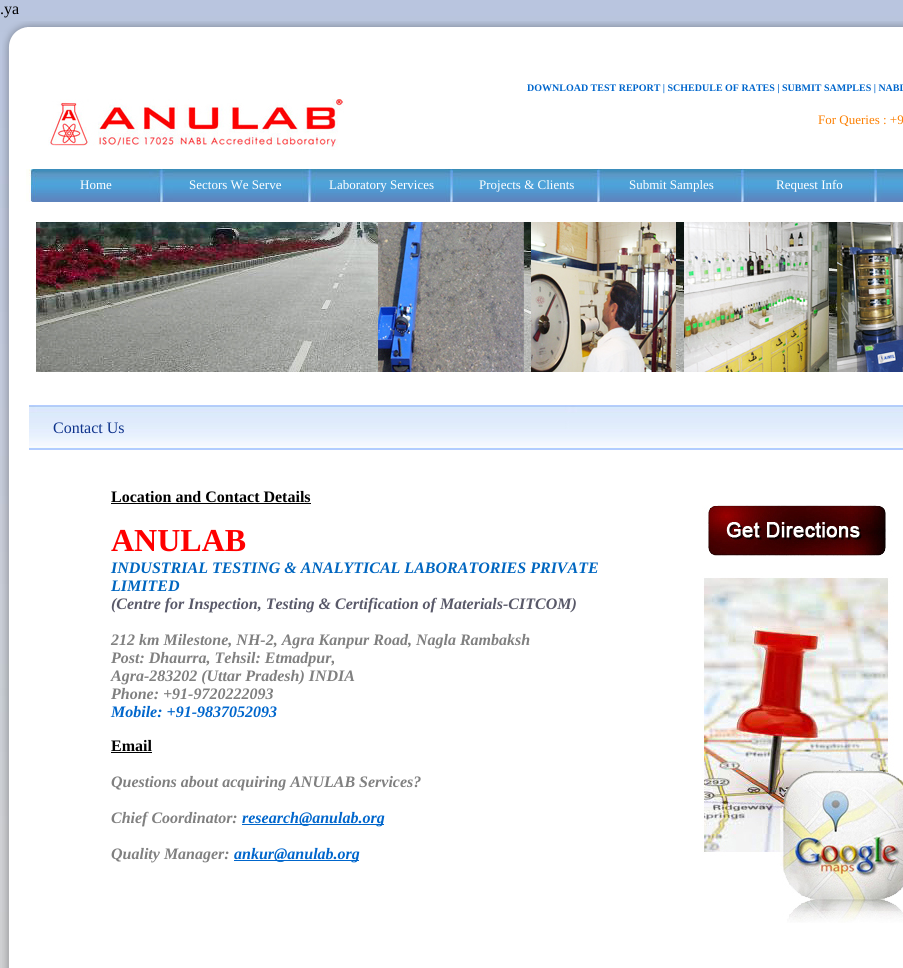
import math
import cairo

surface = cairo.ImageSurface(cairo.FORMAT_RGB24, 903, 968)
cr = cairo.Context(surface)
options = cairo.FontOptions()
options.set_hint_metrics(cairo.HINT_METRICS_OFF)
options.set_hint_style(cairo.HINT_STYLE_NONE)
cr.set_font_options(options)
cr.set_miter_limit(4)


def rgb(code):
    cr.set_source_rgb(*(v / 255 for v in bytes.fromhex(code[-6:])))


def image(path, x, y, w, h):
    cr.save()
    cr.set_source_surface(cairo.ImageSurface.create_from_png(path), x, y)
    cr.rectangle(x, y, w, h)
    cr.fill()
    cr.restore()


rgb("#ffffff")
cr.paint()
image("img/1.png", 0, 0, 903, 968)
image("img/2.png", 2, 21, 901, 30)
image("img/3.png", 2, 51, 901, 917)
image("img/4.png", 48, 99, 296, 51)
image("img/5.png", 26, 169, 877, 33)
image("img/6.png", 36, 222, 867, 150)
image("img/7.png", 29, 405, 874, 45)
for x, y, w, h, color in [
    (111, 503, 200, 1, "#000000"),
    (111, 752, 41, 1, "#000000"),
    (242, 824, 142, 1, "#0066cc"),
    (234, 860, 125, 1, "#0066cc"),
]:
    rgb(color)
    cr.rectangle(x, y, w, h)
    cr.fill()
image("img/8.png", 702, 505, 201, 418)
cr.select_font_face("Liberation Serif")
cr.set_font_size(16)
rgb("#000000")
cr.move_to(0, 14)
cr.show_text(".ya")
cr.select_font_face("Liberation Serif", cairo.FONT_SLANT_NORMAL, cairo.FONT_WEIGHT_BOLD)
cr.set_font_size(10)
rgb("#0066cc")
cr.move_to(527, 91)
cr.show_text("DOWNLOAD TEST REPORT | SCHEDULE OF RATES | SUBMIT SAMPLES | NABL")
cr.select_font_face("Liberation Serif")
cr.set_font_size(13)
rgb("#fc8003")
cr.move_to(818, 124)
cr.show_text("For Queries : +9")
rgb("#ffffff")
for x, y, s in [
    (80, 189, "Home"),
    (189, 189, "Sectors We Serve"),
    (329, 189, "Laboratory Services"),
    (479, 189, "Projects & Clients"),
    (629, 189, "Submit Samples"),
    (776, 189, "Request Info"),
]:
    cr.move_to(x, y)
    cr.show_text(s)
cr.set_font_size(16)
rgb("#0e338b")
cr.move_to(53, 433)
cr.show_text("Contact Us")
cr.select_font_face("Liberation Serif", cairo.FONT_SLANT_NORMAL, cairo.FONT_WEIGHT_BOLD)
rgb("#000000")
cr.move_to(111, 502)
cr.show_text("Location and Contact Details")
cr.set_font_size(32)
rgb("#ff0000")
cr.move_to(111, 551)
cr.show_text("ANULAB")
cr.select_font_face("Liberation Serif", cairo.FONT_SLANT_ITALIC, cairo.FONT_WEIGHT_BOLD)
cr.set_font_size(16)
rgb("#0066c0")
cr.move_to(111, 573)
cr.show_text("INDUSTRIAL TESTING & ANALYTICAL LABORATORIES PRIVATE")
cr.move_to(111, 591)
cr.show_text("LIMITED")
rgb("#595969")
cr.move_to(111, 609)
cr.show_text("(Centre for Inspection, Testing & Certification of Materials-CITCOM)")
rgb("#808080")
for x, y, s in [
    (111, 645, "212 km Milestone, NH-2, Agra Kanpur Road, Nagla Rambaksh"),
    (111, 663, "Post: Dhaurra, Tehsil: Etmadpur,"),
    (111, 681, "Agra-283202 (Uttar Pradesh) INDIA"),
    (111, 699, "Phone: +91-9720222093"),
]:
    cr.move_to(x, y)
    cr.show_text(s)
rgb("#0066cc")
cr.move_to(111, 717)
cr.show_text("Mobile: +91-9837052093")
cr.select_font_face("Liberation Serif", cairo.FONT_SLANT_NORMAL, cairo.FONT_WEIGHT_BOLD)
rgb("#000000")
cr.move_to(111, 751)
cr.show_text("Email")
cr.select_font_face("Liberation Serif", cairo.FONT_SLANT_ITALIC, cairo.FONT_WEIGHT_BOLD)
rgb("#808080")
cr.move_to(111, 787)
cr.show_text("Questions about acquiring ANULAB Services?")
cr.move_to(111, 823)
cr.show_text("Chief Coordinator:")
rgb("#0066cc")
cr.move_to(242, 823)
cr.show_text("research@anulab.org")
rgb("#808080")
cr.move_to(111, 859)
cr.show_text("Quality Manager:")
rgb("#0066cc")
cr.move_to(234, 859)
cr.show_text("ankur@anulab.org")
surface.write_to_png("page.png")
